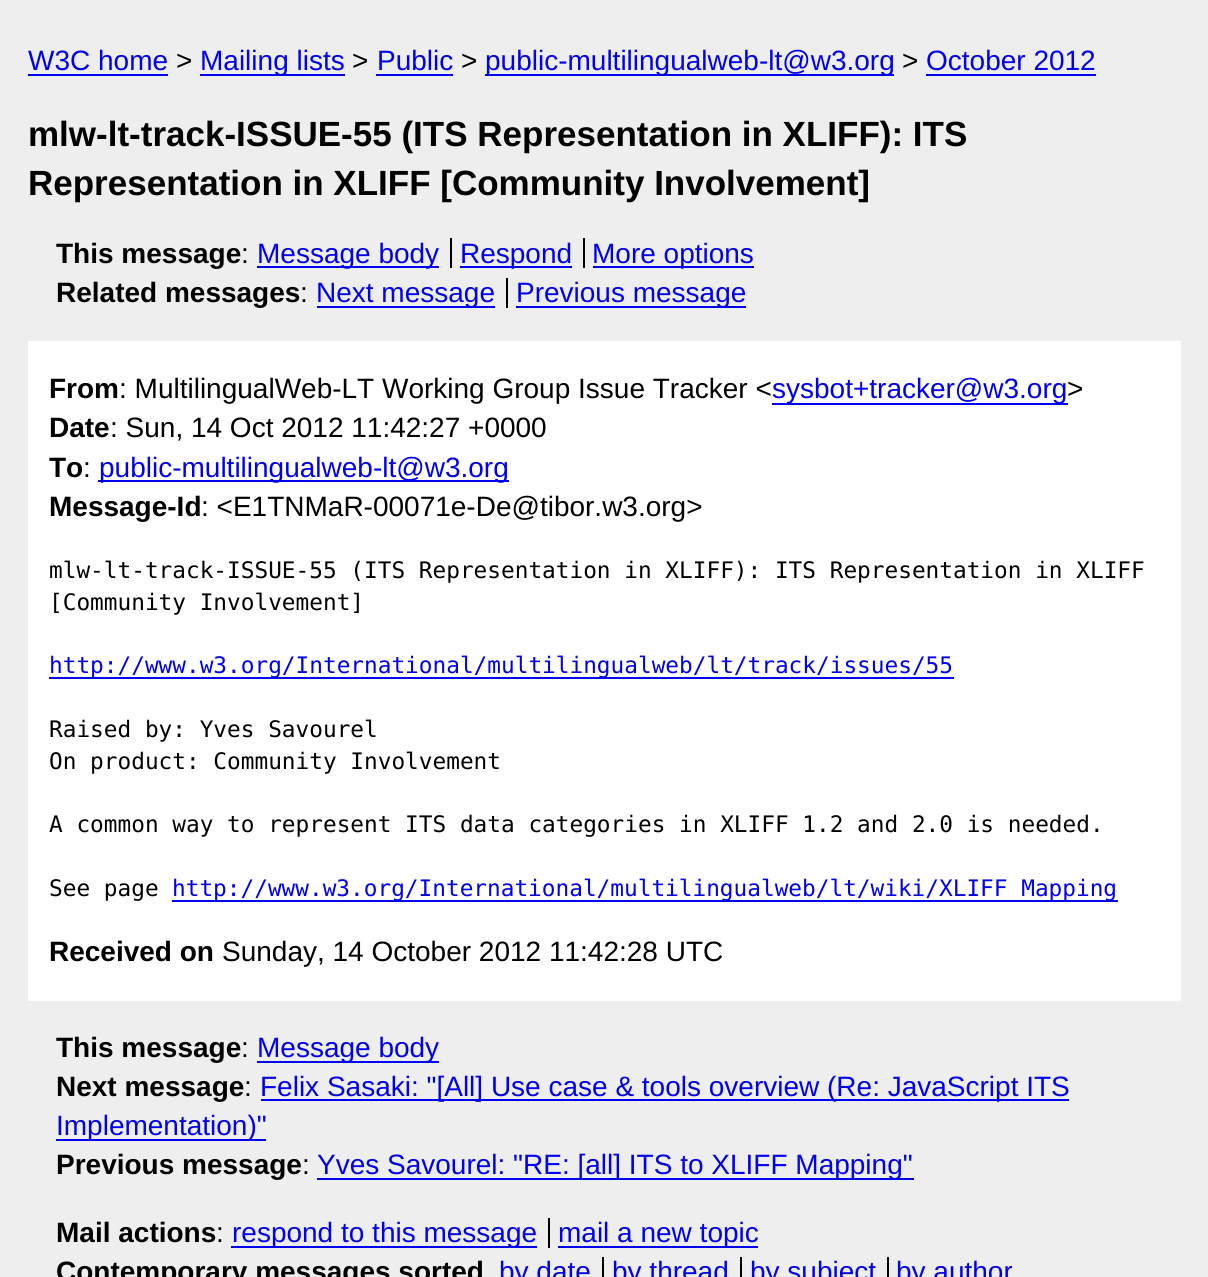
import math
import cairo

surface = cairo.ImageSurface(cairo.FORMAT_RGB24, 1208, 1277)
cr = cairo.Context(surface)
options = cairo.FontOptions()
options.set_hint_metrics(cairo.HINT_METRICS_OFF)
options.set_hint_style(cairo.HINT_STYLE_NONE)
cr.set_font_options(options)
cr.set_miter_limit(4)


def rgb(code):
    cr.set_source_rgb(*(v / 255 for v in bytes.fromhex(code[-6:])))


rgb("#eeeeee")
cr.paint()
for x, y, w, h, color in [
    (28, 74, 140, 2, "#0000ee"),
    (200, 74, 145, 2, "#0000ee"),
    (376, 74, 77, 2, "#0000ee"),
    (485, 74, 409, 2, "#0000ee"),
    (926, 74, 170, 2, "#0000ee"),
    (257, 266, 182, 2, "#0000ee"),
    (450, 238, 2, 30, "#000000"),
    (460, 266, 112, 2, "#0000ee"),
    (583, 238, 2, 30, "#000000"),
    (593, 266, 161, 2, "#0000ee"),
    (317, 306, 178, 2, "#0000ee"),
    (506, 278, 2, 30, "#000000"),
    (516, 306, 230, 2, "#0000ee"),
    (28, 341, 1153, 660, "#ffffff"),
    (772, 403, 296, 2, "#0000ee"),
    (98, 480, 411, 2, "#0000ee"),
    (49, 677, 905, 2, "#0000ee"),
    (172, 900, 946, 2, "#0000ee"),
    (257, 1061, 182, 2, "#0000ee"),
    (261, 1099, 808, 2, "#0000ee"),
    (56, 1139, 210, 2, "#0000ee"),
    (317, 1178, 597, 2, "#0000ee"),
    (231, 1246, 306, 2, "#0000ee"),
    (548, 1218, 2, 30, "#000000"),
    (558, 1246, 200, 2, "#0000ee"),
    (602, 1257, 2, 20, "#000000"),
    (740, 1257, 2, 20, "#000000"),
    (887, 1257, 2, 20, "#000000"),
]:
    rgb(color)
    cr.rectangle(x, y, w, h)
    cr.fill()
cr.select_font_face("Liberation Sans")
cr.set_font_size(28)
rgb("#0000ee")
cr.move_to(28, 70)
cr.show_text("W3C home")
rgb("#000000")
cr.move_to(176, 70)
cr.show_text(">")
rgb("#0000ee")
cr.move_to(200, 70)
cr.show_text("Mailing lists")
rgb("#000000")
cr.move_to(352, 70)
cr.show_text(">")
rgb("#0000ee")
cr.move_to(377, 70)
cr.show_text("Public")
rgb("#000000")
cr.move_to(461, 70)
cr.show_text(">")
rgb("#0000ee")
cr.move_to(485, 70)
cr.show_text("public-multilingualweb-lt@w3.org")
rgb("#000000")
cr.move_to(902, 70)
cr.show_text(">")
rgb("#0000ee")
cr.move_to(926, 70)
cr.show_text("October 2012")
cr.select_font_face("Liberation Sans", cairo.FONT_SLANT_NORMAL, cairo.FONT_WEIGHT_BOLD)
cr.set_font_size(35)
rgb("#000000")
cr.move_to(28, 146)
cr.show_text("mlw-lt-track-ISSUE-55 (ITS Representation in XLIFF): ITS")
cr.move_to(28, 195)
cr.show_text("Representation in XLIFF [Community Involvement]")
cr.set_font_size(28)
cr.move_to(56, 263)
cr.show_text("This message")
cr.select_font_face("Liberation Sans")
cr.move_to(241, 263)
cr.show_text(":")
rgb("#0000ee")
for x, y, s in [
    (257, 263, "Message body"),
    (460, 263, "Respond"),
    (592, 263, "More options"),
]:
    cr.move_to(x, y)
    cr.show_text(s)
cr.select_font_face("Liberation Sans", cairo.FONT_SLANT_NORMAL, cairo.FONT_WEIGHT_BOLD)
rgb("#000000")
cr.move_to(56, 302)
cr.show_text("Related messages")
cr.select_font_face("Liberation Sans")
cr.move_to(300, 302)
cr.show_text(":")
rgb("#0000ee")
cr.move_to(316, 302)
cr.show_text("Next message")
cr.move_to(516, 302)
cr.show_text("Previous message")
cr.select_font_face("Liberation Sans", cairo.FONT_SLANT_NORMAL, cairo.FONT_WEIGHT_BOLD)
rgb("#000000")
cr.move_to(49, 398)
cr.show_text("From")
cr.select_font_face("Liberation Sans")
cr.move_to(119, 398)
cr.show_text(": MultilingualWeb-LT Working Group Issue Tracker <")
rgb("#0000ee")
cr.move_to(772, 398)
cr.show_text("sysbot+tracker@w3.org")
rgb("#000000")
cr.move_to(1067, 398)
cr.show_text(">")
cr.select_font_face("Liberation Sans", cairo.FONT_SLANT_NORMAL, cairo.FONT_WEIGHT_BOLD)
cr.move_to(49, 437)
cr.show_text("Date")
cr.select_font_face("Liberation Sans")
cr.move_to(110, 437)
cr.show_text(": Sun, 14 Oct 2012 11:42:27 +0000")
cr.select_font_face("Liberation Sans", cairo.FONT_SLANT_NORMAL, cairo.FONT_WEIGHT_BOLD)
cr.move_to(49, 477)
cr.show_text("To")
cr.select_font_face("Liberation Sans")
cr.move_to(83, 477)
cr.show_text(":")
rgb("#0000ee")
cr.move_to(99, 477)
cr.show_text("public-multilingualweb-lt@w3.org")
cr.select_font_face("Liberation Sans", cairo.FONT_SLANT_NORMAL, cairo.FONT_WEIGHT_BOLD)
rgb("#000000")
cr.move_to(49, 516)
cr.show_text("Message-Id")
cr.select_font_face("Liberation Sans")
cr.move_to(201, 516)
cr.show_text(": <E1TNMaR-00071e-De@tibor.w3.org>")
cr.select_font_face("DejaVu Sans Mono")
cr.set_font_size(22.75)
cr.move_to(49, 578)
cr.show_text("mlw-lt-track-ISSUE-55 (ITS Representation in XLIFF): ITS Representation in XLIFF")
cr.move_to(49, 610)
cr.show_text("[Community Involvement]")
rgb("#0000ee")
cr.move_to(49, 673)
cr.show_text("http://www.w3.org/International/multilingualweb/lt/track/issues/55")
rgb("#000000")
for x, y, s in [
    (49, 737, "Raised by: Yves Savourel"),
    (49, 769, "On product: Community Involvement"),
    (49, 832, "A common way to represent ITS data categories in XLIFF 1.2 and 2.0 is needed."),
    (49, 896, "See page"),
]:
    cr.move_to(x, y)
    cr.show_text(s)
rgb("#0000ee")
cr.move_to(172, 896)
cr.show_text("http://www.w3.org/International/multilingualweb/lt/wiki/XLIFF_Mapping")
cr.select_font_face("Liberation Sans", cairo.FONT_SLANT_NORMAL, cairo.FONT_WEIGHT_BOLD)
cr.set_font_size(28)
rgb("#000000")
cr.move_to(49, 961)
cr.show_text("Received on")
cr.select_font_face("Liberation Sans")
cr.move_to(222, 961)
cr.show_text("Sunday, 14 October 2012 11:42:28 UTC")
cr.select_font_face("Liberation Sans", cairo.FONT_SLANT_NORMAL, cairo.FONT_WEIGHT_BOLD)
cr.move_to(56, 1057)
cr.show_text("This message")
cr.select_font_face("Liberation Sans")
cr.move_to(241, 1057)
cr.show_text(":")
rgb("#0000ee")
cr.move_to(257, 1057)
cr.show_text("Message body")
cr.select_font_face("Liberation Sans", cairo.FONT_SLANT_NORMAL, cairo.FONT_WEIGHT_BOLD)
rgb("#000000")
cr.move_to(56, 1096)
cr.show_text("Next message")
cr.select_font_face("Liberation Sans")
cr.move_to(244, 1096)
cr.show_text(":")
rgb("#0000ee")
cr.move_to(260, 1096)
cr.show_text("Felix Sasaki: \"[All] Use case & tools overview (Re: JavaScript ITS")
cr.move_to(56, 1135)
cr.show_text("Implementation)\"")
cr.select_font_face("Liberation Sans", cairo.FONT_SLANT_NORMAL, cairo.FONT_WEIGHT_BOLD)
rgb("#000000")
cr.move_to(56, 1174)
cr.show_text("Previous message")
cr.select_font_face("Liberation Sans")
cr.move_to(302, 1174)
cr.show_text(":")
rgb("#0000ee")
cr.move_to(317, 1174)
cr.show_text("Yves Savourel: \"RE: [all] ITS to XLIFF Mapping\"")
cr.select_font_face("Liberation Sans", cairo.FONT_SLANT_NORMAL, cairo.FONT_WEIGHT_BOLD)
rgb("#000000")
cr.move_to(56, 1242)
cr.show_text("Mail actions")
cr.select_font_face("Liberation Sans")
cr.move_to(216, 1242)
cr.show_text(":")
rgb("#0000ee")
cr.move_to(232, 1242)
cr.show_text("respond to this message")
cr.move_to(558, 1242)
cr.show_text("mail a new topic")
cr.select_font_face("Liberation Sans", cairo.FONT_SLANT_NORMAL, cairo.FONT_WEIGHT_BOLD)
rgb("#000000")
cr.move_to(56, 1281)
cr.show_text("Contemporary messages sorted")
cr.select_font_face("Liberation Sans")
rgb("#0000ee")
for x, y, s in [
    (499, 1281, "by date"),
    (612, 1281, "by thread"),
    (750, 1281, "by subject"),
    (896, 1281, "by author"),
]:
    cr.move_to(x, y)
    cr.show_text(s)
surface.write_to_png("page.png")
